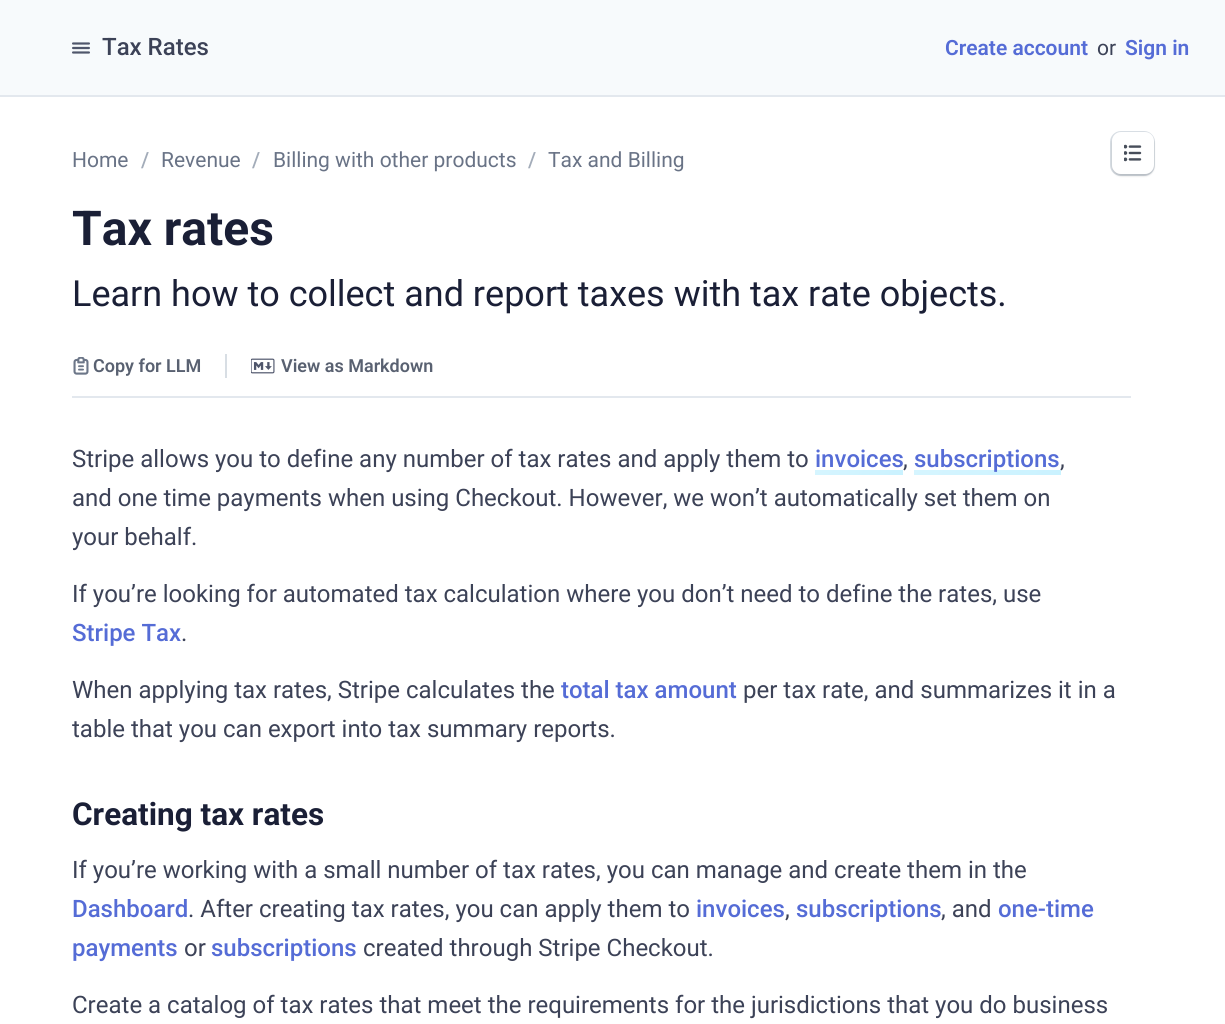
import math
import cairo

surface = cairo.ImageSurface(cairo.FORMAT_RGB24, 1225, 1024)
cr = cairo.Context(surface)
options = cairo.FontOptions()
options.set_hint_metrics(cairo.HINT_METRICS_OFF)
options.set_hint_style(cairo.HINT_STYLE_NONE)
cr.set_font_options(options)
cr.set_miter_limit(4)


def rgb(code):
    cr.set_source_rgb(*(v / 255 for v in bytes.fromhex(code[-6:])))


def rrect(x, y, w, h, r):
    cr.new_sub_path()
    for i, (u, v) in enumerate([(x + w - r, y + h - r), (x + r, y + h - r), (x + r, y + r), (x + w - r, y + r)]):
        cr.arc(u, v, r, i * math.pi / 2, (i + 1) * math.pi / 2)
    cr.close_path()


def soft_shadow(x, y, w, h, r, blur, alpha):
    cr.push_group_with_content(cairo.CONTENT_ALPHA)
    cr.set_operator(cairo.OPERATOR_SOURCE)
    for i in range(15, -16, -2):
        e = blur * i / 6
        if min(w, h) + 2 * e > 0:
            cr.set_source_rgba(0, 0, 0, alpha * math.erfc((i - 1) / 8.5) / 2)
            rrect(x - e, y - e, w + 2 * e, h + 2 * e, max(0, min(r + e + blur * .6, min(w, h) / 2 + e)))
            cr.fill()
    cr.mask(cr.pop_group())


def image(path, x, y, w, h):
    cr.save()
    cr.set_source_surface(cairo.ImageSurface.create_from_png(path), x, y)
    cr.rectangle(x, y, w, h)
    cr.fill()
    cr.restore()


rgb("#ffffff")
cr.paint()
rgb("#f7fafc")
cr.rectangle(0, 0, 1225, 95)
cr.fill()
rgb("#e3e8ee")
cr.rectangle(0, 95, 1225, 2)
cr.fill()
image("img/1.png", 72, 42, 18, 12)
rrect(1111, 132, 43, 43, 10)
rgb("#d8dee4")
cr.stroke()
rgb("#10111a")
soft_shadow(1112, 134, 42, 42, 9, 1, 0.16)
rgb("#ffffff")
rrect(1112, 132, 42, 42, 9)
cr.fill()
image("img/2.png", 1124, 144, 18, 18)
rgb("#e3e8ee")
cr.rectangle(72, 396, 1059, 2)
cr.fill()
image("img/3.png", 73, 357, 16, 18)
rgb("#d8dee4")
cr.rectangle(225, 354, 2, 24)
cr.fill()
image("img/4.png", 251, 358, 24, 16)
gradient = cairo.LinearGradient(825, 452, 893, 492)
gradient.add_color_stop_rgba(0, 0.839, 0.961, 1, 1)
gradient.add_color_stop_rgba(1, 0.792, 0.949, 1, 1)
cr.set_source(gradient)
cr.rectangle(815, 470, 88, 5)
cr.fill()
gradient = cairo.LinearGradient(931, 439, 1043, 504)
gradient.add_color_stop_rgba(0, 0.839, 0.961, 1, 1)
gradient.add_color_stop_rgba(1, 0.792, 0.949, 1, 1)
cr.set_source(gradient)
cr.rectangle(914, 470, 147, 5)
cr.fill()
cr.select_font_face("Roboto Medium")
cr.set_font_size(24)
rgb("#3c4257")
cr.move_to(102, 55)
cr.show_text("Tax Rates")
cr.select_font_face("Roboto SemiBold")
cr.set_font_size(21)
rgb("#556cd6")
cr.move_to(945, 55)
cr.show_text("Create account")
cr.select_font_face("Roboto")
rgb("#3c4257")
cr.move_to(1097, 55)
cr.show_text("or")
cr.select_font_face("Roboto SemiBold")
rgb("#556cd6")
cr.move_to(1125, 55)
cr.show_text("Sign in")
cr.select_font_face("Roboto")
rgb("#697386")
cr.move_to(72, 167)
cr.show_text("Home")
cr.select_font_face("Roboto Medium")
rgb("#a3acb9")
cr.move_to(141, 167)
cr.show_text("/")
cr.select_font_face("Roboto")
rgb("#697386")
cr.move_to(161, 167)
cr.show_text("Revenue")
cr.select_font_face("Roboto Medium")
rgb("#a3acb9")
cr.move_to(252, 167)
cr.show_text("/")
cr.select_font_face("Roboto")
rgb("#697386")
cr.move_to(273, 167)
cr.show_text("Billing with other products")
cr.select_font_face("Roboto Medium")
rgb("#a3acb9")
cr.move_to(528, 167)
cr.show_text("/")
cr.select_font_face("Roboto")
rgb("#697386")
cr.move_to(548, 167)
cr.show_text("Tax and Billing")
cr.select_font_face("Roboto", cairo.FONT_SLANT_NORMAL, cairo.FONT_WEIGHT_BOLD)
cr.set_font_size(48)
rgb("#1a1f36")
cr.move_to(72, 245)
cr.show_text("Tax rates")
cr.select_font_face("Roboto")
cr.set_font_size(36)
cr.move_to(72, 306)
cr.show_text("Learn how to collect and report taxes with tax rate objects.")
cr.select_font_face("Roboto SemiBold")
cr.set_font_size(18)
rgb("#596171")
cr.move_to(93, 372)
cr.show_text("Copy for LLM")
cr.move_to(281, 372)
cr.show_text("View as Markdown")
cr.select_font_face("Roboto")
cr.set_font_size(24)
rgb("#3c4257")
cr.move_to(72, 467)
cr.show_text("Stripe allows you to define any number of tax rates and apply them to")
cr.select_font_face("Roboto Medium")
rgb("#556cd6")
cr.move_to(815, 467)
cr.show_text("invoices")
cr.select_font_face("Roboto")
rgb("#3c4257")
cr.move_to(903, 467)
cr.show_text(",")
cr.select_font_face("Roboto Medium")
rgb("#556cd6")
cr.move_to(914, 467)
cr.show_text("subscriptions")
cr.select_font_face("Roboto")
rgb("#3c4257")
for x, y, s in [
    (1060, 467, ","),
    (72, 506, "and one time payments when using Checkout. However, we won’t automatically set them on"),
    (72, 545, "your behalf."),
    (72, 602, "If you’re looking for automated tax calculation where you don’t need to define the rates, use"),
]:
    cr.move_to(x, y)
    cr.show_text(s)
cr.select_font_face("Roboto Medium")
rgb("#556cd6")
cr.move_to(72, 641)
cr.show_text("Stripe Tax")
cr.select_font_face("Roboto")
rgb("#3c4257")
cr.move_to(181, 641)
cr.show_text(".")
cr.move_to(72, 698)
cr.show_text("When applying tax rates, Stripe calculates the")
cr.select_font_face("Roboto Medium")
rgb("#556cd6")
cr.move_to(561, 698)
cr.show_text("total tax amount")
cr.select_font_face("Roboto")
rgb("#3c4257")
cr.move_to(743, 698)
cr.show_text("per tax rate, and summarizes it in a")
cr.move_to(72, 737)
cr.show_text("table that you can export into tax summary reports.")
cr.select_font_face("Roboto", cairo.FONT_SLANT_NORMAL, cairo.FONT_WEIGHT_BOLD)
cr.set_font_size(31.5)
rgb("#1a1f36")
cr.move_to(72, 825)
cr.show_text("Creating tax rates")
cr.select_font_face("Roboto")
cr.set_font_size(24)
rgb("#3c4257")
cr.move_to(72, 878)
cr.show_text("If you’re working with a small number of tax rates, you can manage and create them in the")
cr.select_font_face("Roboto Medium")
rgb("#556cd6")
cr.move_to(72, 917)
cr.show_text("Dashboard")
cr.select_font_face("Roboto")
rgb("#3c4257")
cr.move_to(188, 917)
cr.show_text(". After creating tax rates, you can apply them to")
cr.select_font_face("Roboto Medium")
rgb("#556cd6")
cr.move_to(696, 917)
cr.show_text("invoices")
cr.select_font_face("Roboto")
rgb("#3c4257")
cr.move_to(785, 917)
cr.show_text(",")
cr.select_font_face("Roboto Medium")
rgb("#556cd6")
cr.move_to(796, 917)
cr.show_text("subscriptions")
cr.select_font_face("Roboto")
rgb("#3c4257")
cr.move_to(941, 917)
cr.show_text(", and")
cr.select_font_face("Roboto Medium")
rgb("#556cd6")
cr.move_to(998, 917)
cr.show_text("one-time")
cr.move_to(72, 956)
cr.show_text("payments")
cr.select_font_face("Roboto")
rgb("#3c4257")
cr.move_to(184, 956)
cr.show_text("or")
cr.select_font_face("Roboto Medium")
rgb("#556cd6")
cr.move_to(211, 956)
cr.show_text("subscriptions")
cr.select_font_face("Roboto")
rgb("#3c4257")
cr.move_to(363, 956)
cr.show_text("created through Stripe Checkout.")
cr.move_to(72, 1013)
cr.show_text("Create a catalog of tax rates that meet the requirements for the jurisdictions that you do business")
surface.write_to_png("page.png")
